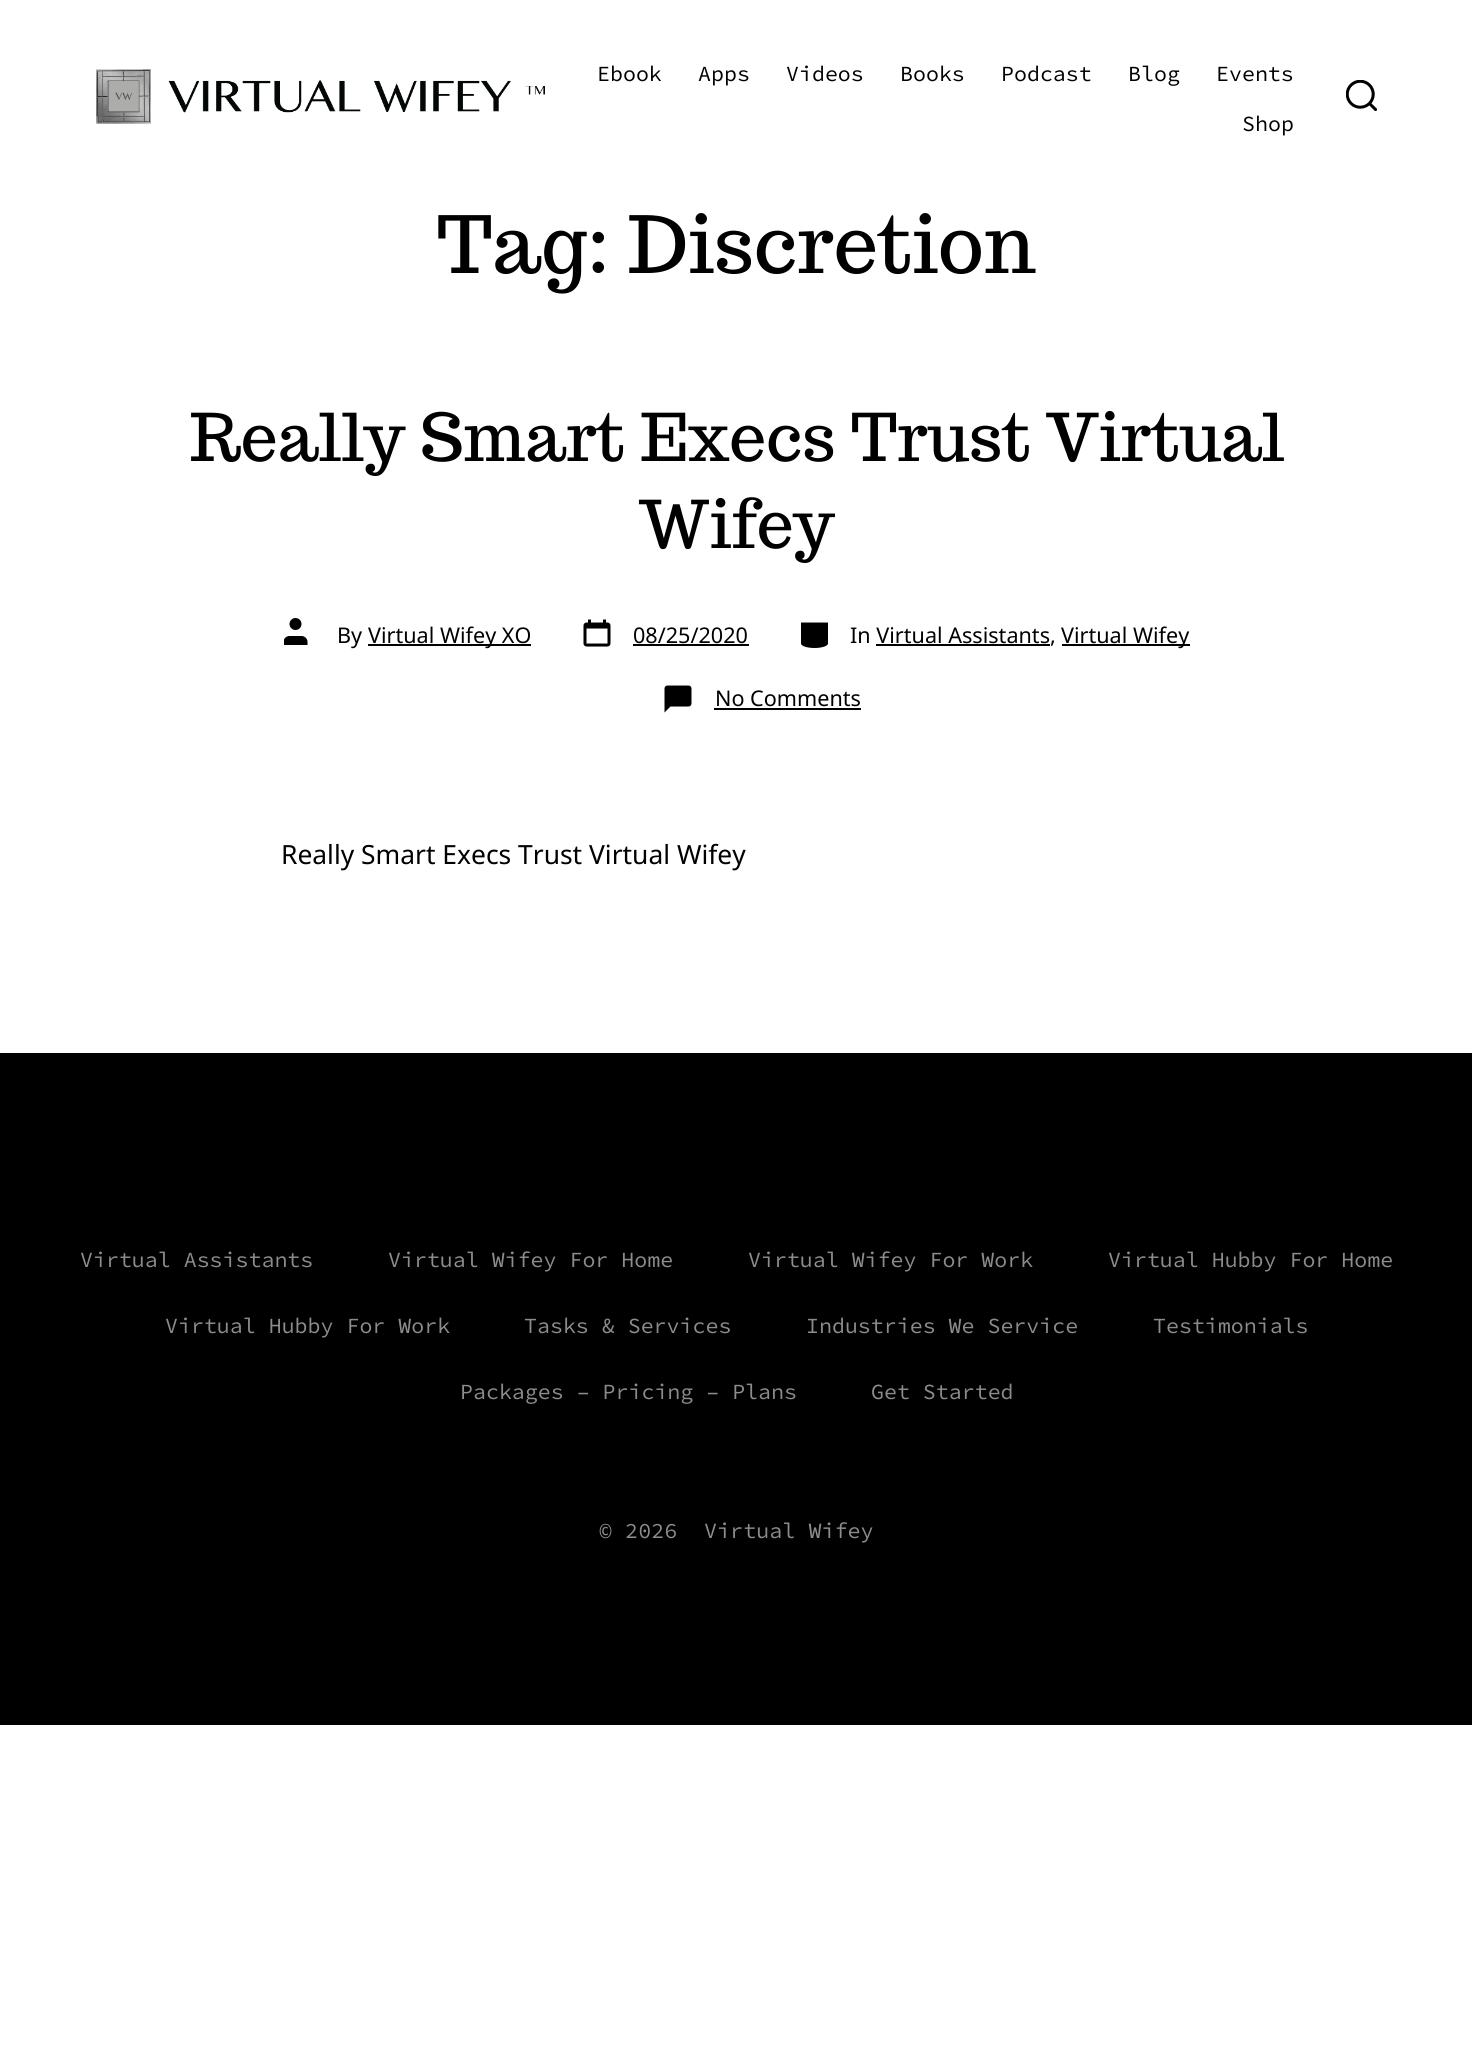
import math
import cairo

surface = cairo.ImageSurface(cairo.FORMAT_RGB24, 1472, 2062)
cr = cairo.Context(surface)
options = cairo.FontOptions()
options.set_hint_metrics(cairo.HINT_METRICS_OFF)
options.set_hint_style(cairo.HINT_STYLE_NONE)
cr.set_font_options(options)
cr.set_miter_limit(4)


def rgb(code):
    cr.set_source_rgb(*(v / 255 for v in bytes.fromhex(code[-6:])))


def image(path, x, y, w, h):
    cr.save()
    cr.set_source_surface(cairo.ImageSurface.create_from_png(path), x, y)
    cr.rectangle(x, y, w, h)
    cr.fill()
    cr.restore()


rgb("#ffffff")
cr.paint()
image("img/1.png", 96, 69, 449, 55)
image("img/2.png", 1346, 80, 31, 31)
image("img/3.png", 284, 618, 24, 27)
rgb("#000000")
cr.rectangle(368, 644, 163, 2)
cr.fill()
image("img/4.png", 583, 619, 28, 28)
cr.rectangle(633, 644, 116, 2)
cr.fill()
image("img/5.png", 801, 622, 27, 26)
cr.rectangle(1062, 644, 128, 2)
cr.fill()
cr.rectangle(876, 644, 174, 2)
cr.fill()
image("img/6.png", 664, 685, 28, 28)
cr.rectangle(714, 708, 147, 2)
cr.fill()
cr.rectangle(0, 1053, 1472, 672)
cr.fill()
cr.select_font_face("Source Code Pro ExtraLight")
cr.set_font_size(21.6)
for x, y, s in [
    (597, 81, "Ebook"),
    (698, 81, "Apps"),
    (786, 81, "Videos"),
    (900, 81, "Books"),
    (1001, 81, "Podcast"),
    (1128, 81, "Blog"),
    (1216, 81, "Events"),
    (1242, 131, "Shop"),
]:
    cr.move_to(x, y)
    cr.show_text(s)
cr.select_font_face("Trocchi")
cr.set_font_size(78.75)
cr.move_to(437, 273)
cr.show_text("Tag: Discretion")
cr.set_font_size(65.75)
cr.move_to(190, 461)
cr.show_text("Really Smart Execs Trust Virtual")
cr.move_to(638, 548)
cr.show_text("Wifey")
cr.select_font_face("Noto Sans")
cr.set_font_size(21.6)
for x, y, s in [
    (337, 643, "By"),
    (368, 643, "Virtual Wifey XO"),
    (633, 643, "08/25/2020"),
    (850, 643, "In Virtual Assistants,"),
    (1061, 643, "Virtual Wifey"),
    (715, 706, "No Comments"),
]:
    cr.move_to(x, y)
    cr.show_text(s)
cr.set_font_size(26.4)
cr.move_to(281, 864)
cr.show_text("Really Smart Execs Trust Virtual Wifey")
cr.select_font_face("Source Code Pro ExtraLight")
cr.set_font_size(21.6)
rgb("#8c8c8c")
for x, y, s in [
    (80, 1267, "Virtual Assistants"),
    (388, 1267, "Virtual Wifey For Home"),
    (748, 1267, "Virtual Wifey For Work"),
    (1108, 1267, "Virtual Hubby For Home"),
    (165, 1333, "Virtual Hubby For Work"),
    (524, 1333, "Tasks & Services"),
    (806, 1333, "Industries We Service"),
    (1153, 1333, "Testimonials"),
    (460, 1399, "Packages – Pricing – Plans"),
    (871, 1399, "Get Started"),
]:
    cr.move_to(x, y)
    cr.show_text(s)
cr.set_font_size(21.75)
cr.move_to(599, 1538)
cr.show_text("© 2026")
cr.move_to(704, 1538)
cr.show_text("Virtual Wifey")
surface.write_to_png("page.png")
